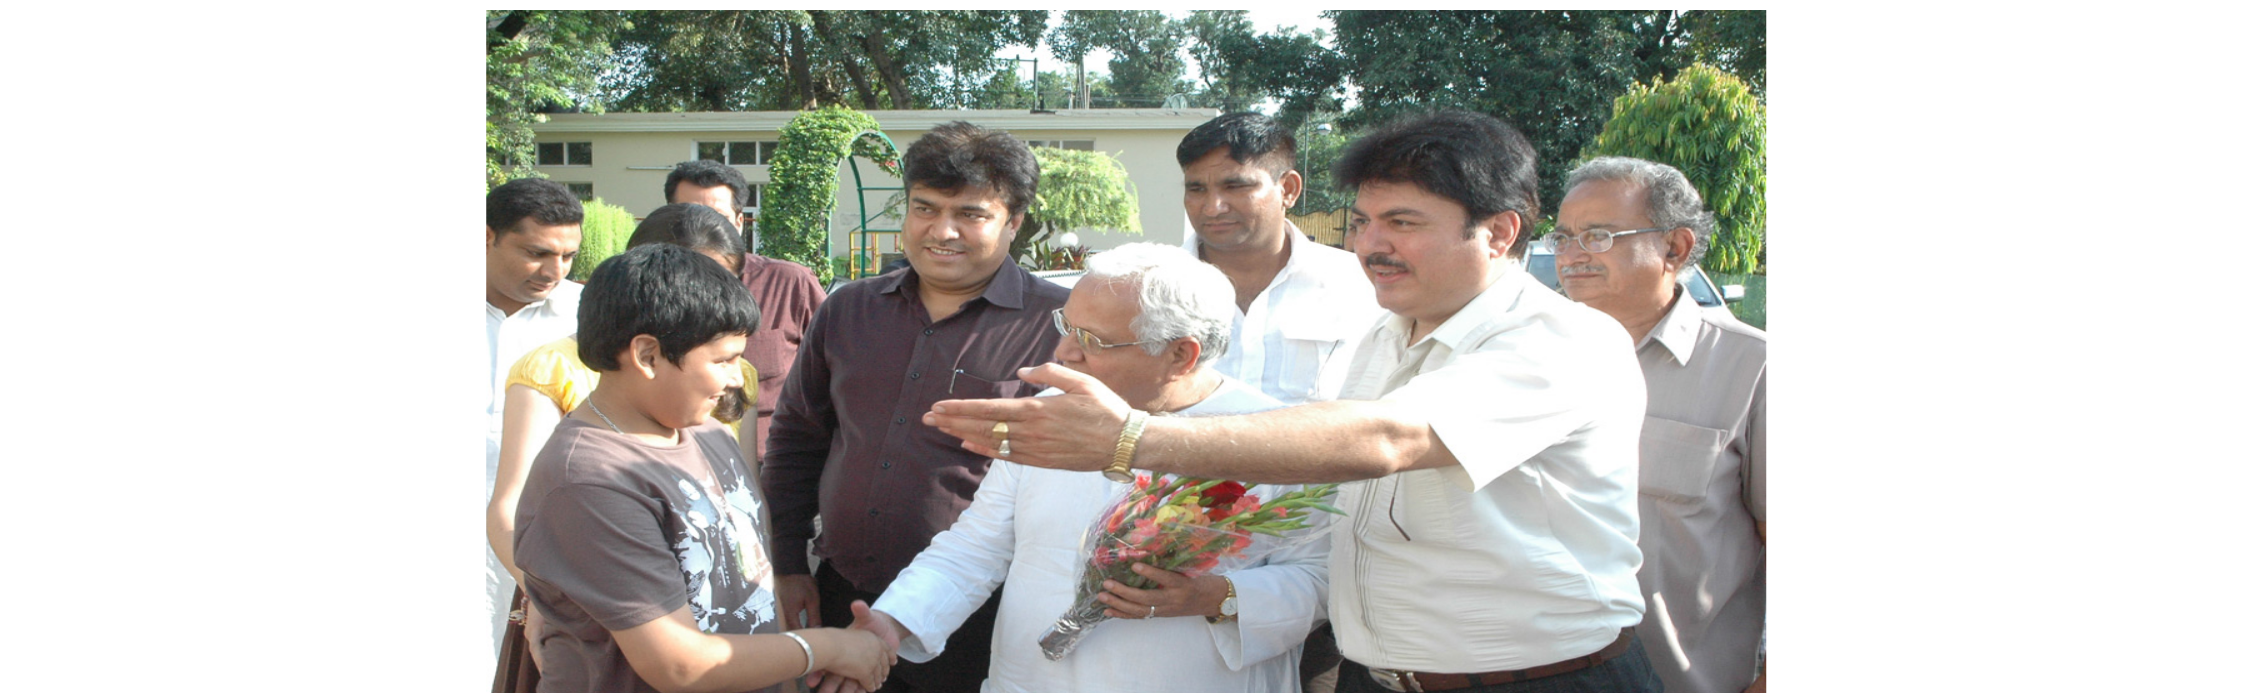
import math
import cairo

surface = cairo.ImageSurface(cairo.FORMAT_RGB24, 2251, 693)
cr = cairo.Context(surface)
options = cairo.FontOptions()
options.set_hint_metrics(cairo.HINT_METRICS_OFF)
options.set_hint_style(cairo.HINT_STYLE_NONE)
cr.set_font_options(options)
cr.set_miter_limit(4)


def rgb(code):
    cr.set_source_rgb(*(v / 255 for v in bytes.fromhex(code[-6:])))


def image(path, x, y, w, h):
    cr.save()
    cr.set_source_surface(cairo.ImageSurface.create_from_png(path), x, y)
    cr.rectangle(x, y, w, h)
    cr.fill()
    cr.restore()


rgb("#ffffff")
cr.paint()
image("img/1.png", 486, 10, 1281, 683)
surface.write_to_png("page.png")
